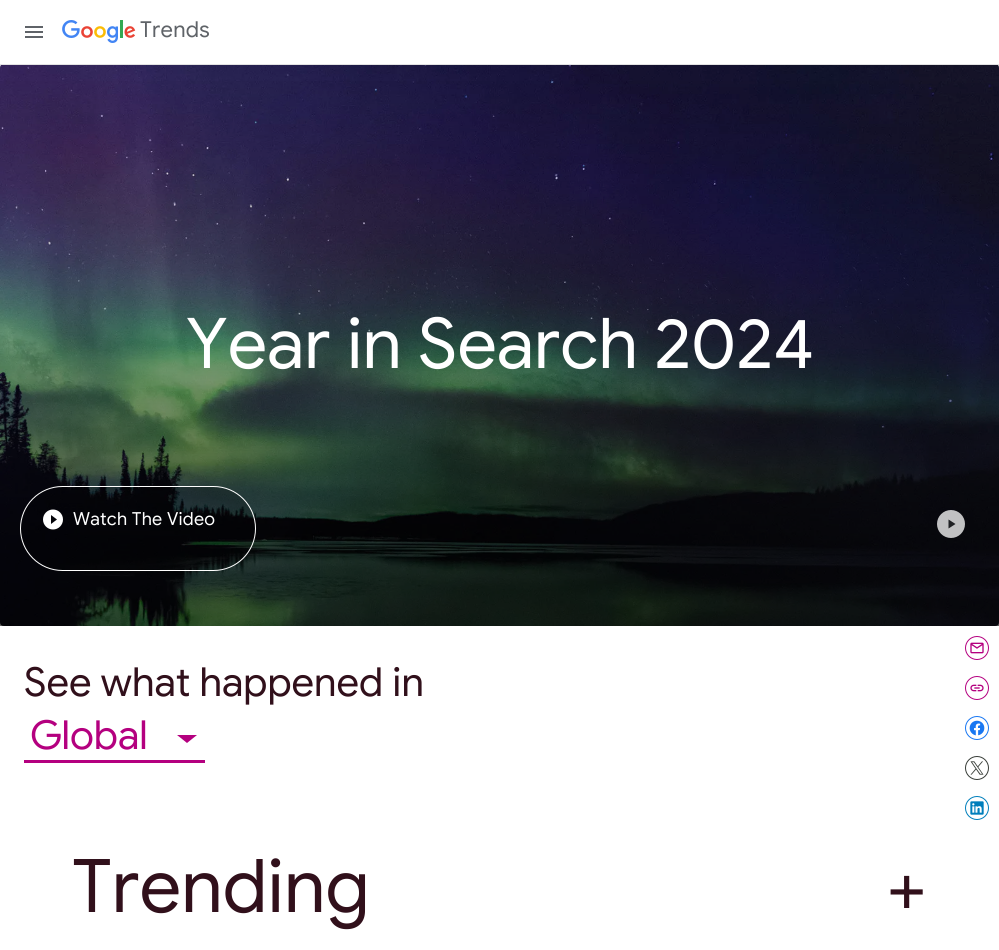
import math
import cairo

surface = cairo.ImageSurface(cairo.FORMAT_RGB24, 999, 950)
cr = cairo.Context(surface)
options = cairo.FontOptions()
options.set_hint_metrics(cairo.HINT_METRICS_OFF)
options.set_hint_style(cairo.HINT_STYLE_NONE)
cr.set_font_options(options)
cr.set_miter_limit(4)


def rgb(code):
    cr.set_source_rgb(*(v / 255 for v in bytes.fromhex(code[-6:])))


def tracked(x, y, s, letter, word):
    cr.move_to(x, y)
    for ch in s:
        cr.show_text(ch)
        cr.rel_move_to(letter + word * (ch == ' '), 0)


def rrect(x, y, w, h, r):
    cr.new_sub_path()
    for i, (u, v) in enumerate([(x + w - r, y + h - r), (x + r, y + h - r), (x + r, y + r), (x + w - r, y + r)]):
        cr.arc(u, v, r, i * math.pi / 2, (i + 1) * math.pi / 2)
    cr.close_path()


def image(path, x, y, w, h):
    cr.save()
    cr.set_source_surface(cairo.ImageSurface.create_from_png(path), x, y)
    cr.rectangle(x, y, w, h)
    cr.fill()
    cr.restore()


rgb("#ffffff")
cr.paint()
rgb("#e3e3e3")
cr.rectangle(0, 64, 999, 1)
cr.fill()
image("img/1.png", 25, 26, 18, 12)
image("img/2.png", 62, 20, 74, 23)
rgb("#f9fcf7")
cr.rectangle(0, 65, 999, 561)
cr.fill()
image("img/3.png", 0, 65, 999, 561)
gradient = cairo.LinearGradient(499, 64, 500, 626)
gradient.add_color_stop_rgba(0, 0, 0, 0, 0)
gradient.add_color_stop_rgba(0.85, 0, 0, 0, 0.6)
cr.set_source(gradient)
cr.rectangle(0, 81, 999, 545)
cr.fill()
cr.set_source_rgba(1, 1, 1, 0.75)
cr.arc(951, 524, 14, 0, 2 * math.pi)
cr.fill()
rgb("#202124")
cr.new_path()
cr.move_to(948.5, 519.5)
cr.line_to(948.5, 528.5)
cr.line_to(955.5, 524)
cr.close_path()
cr.fill()
cr.set_source_rgba(0, 0, 0, 0.2)
rrect(20.5, 486.5, 235, 84, 42)
cr.fill_preserve()
rgb("#ffffff")
cr.set_line_width(1)
cr.stroke()
image("img/4.png", 43, 509, 20, 21)
rgb("#b4007f")
cr.rectangle(24, 760, 181, 3)
cr.fill()
cr.new_path()
cr.move_to(177, 735)
cr.line_to(197, 735)
cr.line_to(187, 743)
cr.close_path()
cr.fill()
cr.arc(977, 648, 11.5, 0, 2 * math.pi)
cr.stroke()
image("img/5.png", 970, 642, 14, 12)
cr.arc(977, 688, 11.5, 0, 2 * math.pi)
cr.stroke()
image("img/6.png", 970, 684, 14, 8)
cr.arc(977, 728, 11.5, 0, 2 * math.pi)
rgb("#1877f2")
cr.stroke()
image("img/7.png", 969, 720, 16, 16)
cr.arc(977, 768, 11.5, 0, 2 * math.pi)
rgb("#383d38")
cr.stroke()
image("img/8.png", 970, 761, 14, 14)
cr.arc(977, 808, 11.5, 0, 2 * math.pi)
rgb("#007ebb")
cr.stroke()
image("img/9.png", 970, 801, 14, 14)
cr.select_font_face("Google Sans")
cr.set_font_size(22)
rgb("#5f6368")
tracked(140, 37, "Trends", 0.25, 0)
cr.set_font_size(70)
rgb("#ffffff")
cr.move_to(186, 368)
cr.show_text("Year in Search 2024")
cr.set_font_size(18)
tracked(73, 525, "Watch The Video", 0.25, 0)
cr.set_font_size(40)
rgb("#31101b")
cr.move_to(24, 696)
cr.show_text("See what happened in")
rgb("#b4007f")
cr.move_to(30, 749)
cr.show_text("Global")
cr.set_font_size(74)
rgb("#31101b")
cr.move_to(72, 912)
cr.show_text("Trending")
cr.move_to(886, 912)
cr.show_text("+")
surface.write_to_png("page.png")
